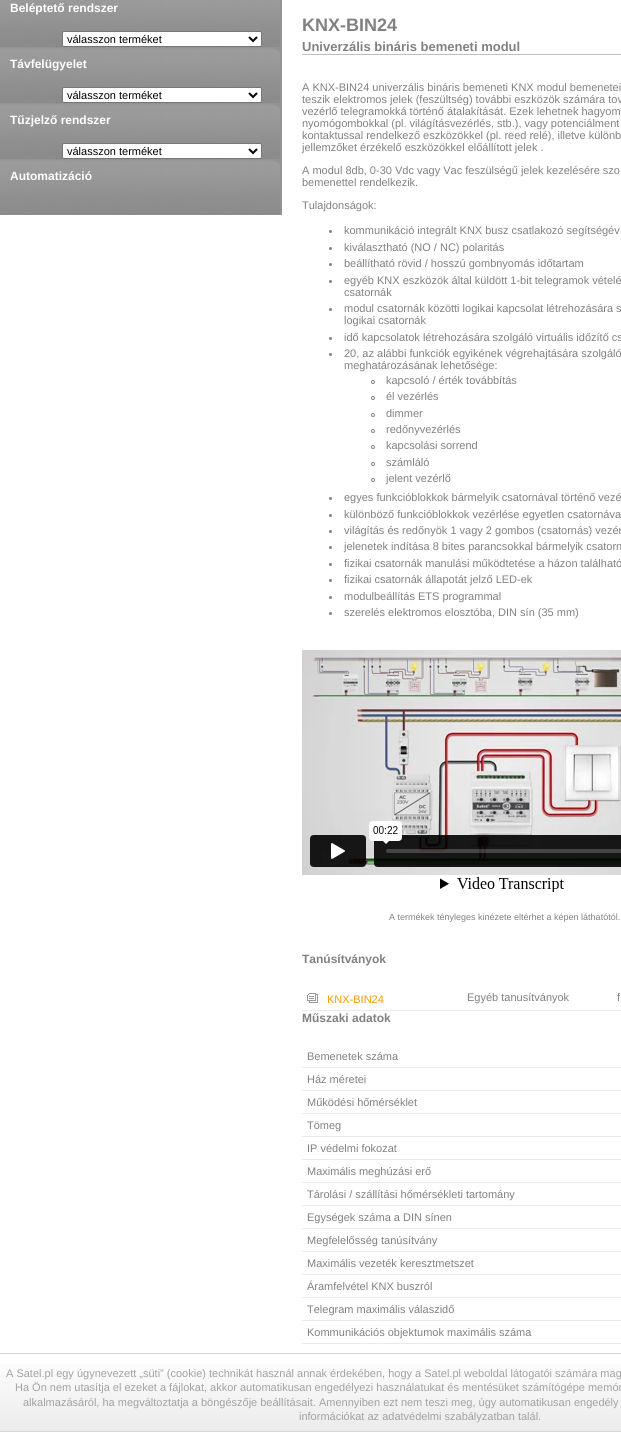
import math
import cairo

surface = cairo.ImageSurface(cairo.FORMAT_RGB24, 621, 1432)
cr = cairo.Context(surface)
options = cairo.FontOptions()
options.set_hint_metrics(cairo.HINT_METRICS_OFF)
options.set_hint_style(cairo.HINT_STYLE_NONE)
cr.set_font_options(options)
cr.set_miter_limit(4)


def rgb(code):
    cr.set_source_rgb(*(v / 255 for v in bytes.fromhex(code[-6:])))


def rrect(x, y, w, h, r):
    cr.new_sub_path()
    for i, (u, v) in enumerate([(x + w - r, y + h - r), (x + r, y + h - r), (x + r, y + r), (x + w - r, y + r)]):
        cr.arc(u, v, r, i * math.pi / 2, (i + 1) * math.pi / 2)
    cr.close_path()


def image(path, x, y, w, h):
    cr.save()
    cr.set_source_surface(cairo.ImageSurface.create_from_png(path), x, y)
    cr.rectangle(x, y, w, h)
    cr.fill()
    cr.restore()


rgb("#ffffff")
cr.paint()
image("img/1.png", 0, 0, 282, 47)
rgb("#ffffff")
rrect(62.5, 31.5, 199, 15, 1.5)
cr.fill_preserve()
rgb("#767676")
cr.set_line_width(1)
cr.stroke()
cr.new_path()
cr.move_to(249, 37)
cr.line_to(253, 41)
cr.line_to(257, 37)
rgb("#000000")
cr.set_line_width(2)
cr.stroke()
image("img/2.png", 0, 47, 282, 56)
rgb("#ffffff")
rrect(62.5, 87.5, 199, 15, 1.5)
cr.fill_preserve()
rgb("#767676")
cr.set_line_width(1)
cr.stroke()
cr.new_path()
cr.move_to(249, 93)
cr.line_to(253, 97)
cr.line_to(257, 93)
rgb("#000000")
cr.set_line_width(2)
cr.stroke()
image("img/2.png", 0, 103, 282, 56)
rgb("#ffffff")
rrect(62.5, 143.5, 199, 15, 1.5)
cr.fill_preserve()
rgb("#767676")
cr.set_line_width(1)
cr.stroke()
cr.new_path()
cr.move_to(249, 149)
cr.line_to(253, 153)
cr.line_to(257, 149)
rgb("#000000")
cr.set_line_width(2)
cr.stroke()
image("img/2.png", 0, 159, 282, 56)
rgb("#bebebe")
cr.rectangle(302, 54, 319, 1)
cr.fill()
rgb("#818181")
cr.arc(330.5, 231.5, 1.5, 0, 2 * math.pi)
cr.fill()
cr.arc(330.5, 248.5, 1.5, 0, 2 * math.pi)
cr.fill()
cr.arc(330.5, 264.5, 1.5, 0, 2 * math.pi)
cr.fill()
cr.arc(330.5, 281.5, 1.5, 0, 2 * math.pi)
cr.fill()
cr.arc(330.5, 309.5, 1.5, 0, 2 * math.pi)
cr.fill()
cr.arc(330.5, 338.5, 1.5, 0, 2 * math.pi)
cr.fill()
cr.arc(330.5, 354.5, 1.5, 0, 2 * math.pi)
cr.fill()
cr.arc(373, 382, 1.5, 0, 2 * math.pi)
cr.set_line_width(1)
cr.stroke()
cr.arc(373, 398, 1.5, 0, 2 * math.pi)
cr.stroke()
cr.arc(373, 415, 1.5, 0, 2 * math.pi)
cr.stroke()
cr.arc(373, 431, 1.5, 0, 2 * math.pi)
cr.stroke()
cr.arc(373, 447, 1.5, 0, 2 * math.pi)
cr.stroke()
cr.arc(373, 464, 1.5, 0, 2 * math.pi)
cr.stroke()
cr.arc(373, 480, 1.5, 0, 2 * math.pi)
cr.stroke()
cr.arc(330.5, 498.5, 1.5, 0, 2 * math.pi)
cr.fill()
cr.arc(330.5, 515.5, 1.5, 0, 2 * math.pi)
cr.fill()
cr.arc(330.5, 531.5, 1.5, 0, 2 * math.pi)
cr.fill()
cr.arc(330.5, 547.5, 1.5, 0, 2 * math.pi)
cr.fill()
cr.arc(330.5, 564.5, 1.5, 0, 2 * math.pi)
cr.fill()
cr.arc(330.5, 580.5, 1.5, 0, 2 * math.pi)
cr.fill()
cr.arc(330.5, 597.5, 1.5, 0, 2 * math.pi)
cr.fill()
cr.arc(330.5, 613.5, 1.5, 0, 2 * math.pi)
cr.fill()
image("img/3.png", 302, 650, 319, 242)
rgb("#eaeaea")
cr.rectangle(302, 1010, 319, 1)
cr.fill()
image("img/4.png", 307, 993, 11, 10)
for x, y, w, h, color in [
    (302, 1067, 319, 1, "#eaeaea"),
    (302, 1090, 319, 1, "#eaeaea"),
    (302, 1113, 319, 1, "#eaeaea"),
    (302, 1136, 319, 1, "#eaeaea"),
    (302, 1159, 319, 1, "#eaeaea"),
    (302, 1182, 319, 1, "#eaeaea"),
    (302, 1205, 319, 1, "#eaeaea"),
    (302, 1228, 319, 1, "#eaeaea"),
    (302, 1251, 319, 1, "#eaeaea"),
    (302, 1274, 319, 1, "#eaeaea"),
    (302, 1297, 319, 1, "#eaeaea"),
    (302, 1320, 319, 1, "#eaeaea"),
    (302, 1343, 319, 1, "#eaeaea"),
]:
    rgb(color)
    cr.rectangle(x, y, w, h)
    cr.fill()
gradient = cairo.LinearGradient(311, 1354, 311, 1431)
gradient.add_color_stop_rgba(0, 1, 1, 1, 1)
gradient.add_color_stop_rgba(1, 0.922, 0.922, 0.922, 1)
cr.set_source(gradient)
cr.rectangle(0, 1364, 621, 67)
cr.fill()
rgb("#d7d7d7")
cr.rectangle(0, 1353, 621, 1)
cr.fill()
cr.rectangle(0, 1431, 621, 1)
cr.fill()
cr.select_font_face("Liberation Sans", cairo.FONT_SLANT_NORMAL, cairo.FONT_WEIGHT_BOLD)
cr.set_font_size(12)
rgb("#ffffff")
cr.move_to(10, 12)
cr.show_text("Beléptető rendszer")
cr.select_font_face("Liberation Sans")
cr.set_font_size(11)
rgb("#000000")
cr.move_to(67, 43)
cr.show_text("válasszon terméket")
cr.select_font_face("Liberation Sans", cairo.FONT_SLANT_NORMAL, cairo.FONT_WEIGHT_BOLD)
cr.set_font_size(12)
rgb("#ffffff")
cr.move_to(10, 68)
cr.show_text("Távfelügyelet")
cr.select_font_face("Liberation Sans")
cr.set_font_size(11)
rgb("#000000")
cr.move_to(67, 99)
cr.show_text("válasszon terméket")
cr.select_font_face("Liberation Sans", cairo.FONT_SLANT_NORMAL, cairo.FONT_WEIGHT_BOLD)
cr.set_font_size(12)
rgb("#ffffff")
cr.move_to(10, 124)
cr.show_text("Tűzjelző rendszer")
cr.select_font_face("Liberation Sans")
cr.set_font_size(11)
rgb("#000000")
cr.move_to(67, 155)
cr.show_text("válasszon terméket")
cr.select_font_face("Liberation Sans", cairo.FONT_SLANT_NORMAL, cairo.FONT_WEIGHT_BOLD)
cr.set_font_size(12)
rgb("#ffffff")
cr.move_to(10, 180)
cr.show_text("Automatizáció")
cr.set_font_size(18)
rgb("#818181")
cr.move_to(302, 31)
cr.show_text("KNX-BIN24")
cr.set_font_size(13)
cr.move_to(302, 51)
cr.show_text("Univerzális bináris bemeneti modul")
cr.select_font_face("Liberation Sans")
cr.set_font_size(11)
for x, y, s in [
    (302, 91, "A KNX-BIN24 univerzális bináris bemeneti KNX modul bemenetei"),
    (302, 103, "teszik elektromos jelek (feszültség) további eszközök számára tov"),
    (302, 115, "vezérlő telegramokká történő átalakítását. Ezek lehetnek hagyom"),
    (302, 127, "nyomógombokkal (pl. világításvezérlés, stb.), vagy potenciálment"),
    (302, 139, "kontaktussal rendelkező eszközökkel (pl. reed relé), illetve különb"),
    (302, 151, "jellemzőket érzékelő eszközökkel előállított jelek ."),
    (302, 174, "A modul 8db, 0-30 Vdc vagy Vac feszülségű jelek kezelésére szo"),
    (302, 186, "bemenettel rendelkezik."),
    (302, 209, "Tulajdonságok:"),
    (344, 234, "kommunikáció integrált KNX busz csatlakozó segítségév"),
    (344, 251, "kiválasztható (NO / NC) polaritás"),
    (344, 267, "beállítható rövid / hosszú gombnyomás időtartam"),
    (344, 284, "egyéb KNX eszközök által küldött 1-bit telegramok vételé"),
    (344, 296, "csatornák"),
    (344, 312, "modul csatornák közötti logikai kapcsolat létrehozására s"),
    (344, 324, "logikai csatornák"),
    (344, 341, "idő kapcsolatok létrehozására szolgáló virtuális időzítő cs"),
    (344, 357, "20, az alábbi funkciók egyikének végrehajtására szolgáló"),
    (344, 369, "meghatározásának lehetősége:"),
    (386, 384, "kapcsoló / érték továbbítás"),
    (386, 400, "él vezérlés"),
    (386, 417, "dimmer"),
    (386, 433, "redőnyvezérlés"),
    (386, 449, "kapcsolási sorrend"),
    (386, 466, "számláló"),
    (386, 482, "jelent vezérlő"),
    (344, 501, "egyes funkcióblokkok bármelyik csatornával történő vezé"),
    (344, 518, "különböző funkcióblokkok vezérlése egyetlen csatornáva"),
    (344, 534, "világítás és redőnyök 1 vagy 2 gombos (csatornás) vezér"),
    (344, 550, "jelenetek indítása 8 bites parancsokkal bármelyik csatorn"),
    (344, 567, "fizikai csatornák manulási működtetése a házon található"),
    (344, 583, "fizikai csatornák állapotát jelző LED-ek"),
    (344, 600, "modulbeállítás ETS programmal"),
    (344, 616, "szerelés elektromos elosztóba, DIN sín (35 mm)"),
]:
    cr.move_to(x, y)
    cr.show_text(s)
cr.set_font_size(9)
cr.move_to(389, 920)
cr.show_text("A termékek tényleges kinézete eltérhet a képen láthatótól.")
cr.select_font_face("Liberation Sans", cairo.FONT_SLANT_NORMAL, cairo.FONT_WEIGHT_BOLD)
cr.set_font_size(12)
cr.move_to(302, 963)
cr.show_text("Tanúsítványok")
cr.select_font_face("Liberation Sans")
cr.set_font_size(11)
rgb("#fc9800")
cr.move_to(327, 1003)
cr.show_text("KNX-BIN24")
rgb("#818181")
cr.move_to(467, 1001)
cr.show_text("Egyéb tanusítványok")
cr.move_to(617, 1001)
cr.show_text("f")
cr.select_font_face("Liberation Sans", cairo.FONT_SLANT_NORMAL, cairo.FONT_WEIGHT_BOLD)
cr.set_font_size(12)
cr.move_to(302, 1022)
cr.show_text("Műszaki adatok")
cr.select_font_face("Liberation Sans")
cr.set_font_size(11)
for x, y, s in [
    (307, 1060, "Bemenetek száma"),
    (307, 1083, "Ház méretei"),
    (307, 1106, "Működési hőmérséklet"),
    (307, 1129, "Tömeg"),
    (307, 1152, "IP védelmi fokozat"),
    (307, 1175, "Maximális meghúzási erő"),
    (307, 1198, "Tárolási / szállítási hőmérsékleti tartomány"),
    (307, 1221, "Egységek száma a DIN sínen"),
    (307, 1244, "Megfelelősség tanúsítvány"),
    (307, 1267, "Maximális vezeték keresztmetszet"),
    (307, 1290, "Áramfelvétel KNX buszról"),
    (307, 1313, "Telegram maximális válaszidő"),
    (307, 1336, "Kommunikációs objektumok maximális száma"),
]:
    cr.move_to(x, y)
    cr.show_text(s)
rgb("#a2a2a2")
for x, y, s in [
    (6, 1377, "A Satel.pl egy úgynevezett „süti” (cookie) technikát használ annak érdekében, hogy a Satel.pl weboldal látogatói számára mag"),
    (15, 1391, "Ha Ön nem utasítja el ezeket a fájlokat, akkor automatikusan engedélyezi használatukat és mentésüket számítógépe memór"),
    (23, 1406, "alkalmazásáról, ha megváltoztatja a böngészője beállításait. Amennyiben ezt nem teszi meg, úgy automatikusan engedély"),
    (299, 1420, "információkat az adatvédelmi szabályzatban talál."),
]:
    cr.move_to(x, y)
    cr.show_text(s)
surface.write_to_png("page.png")
